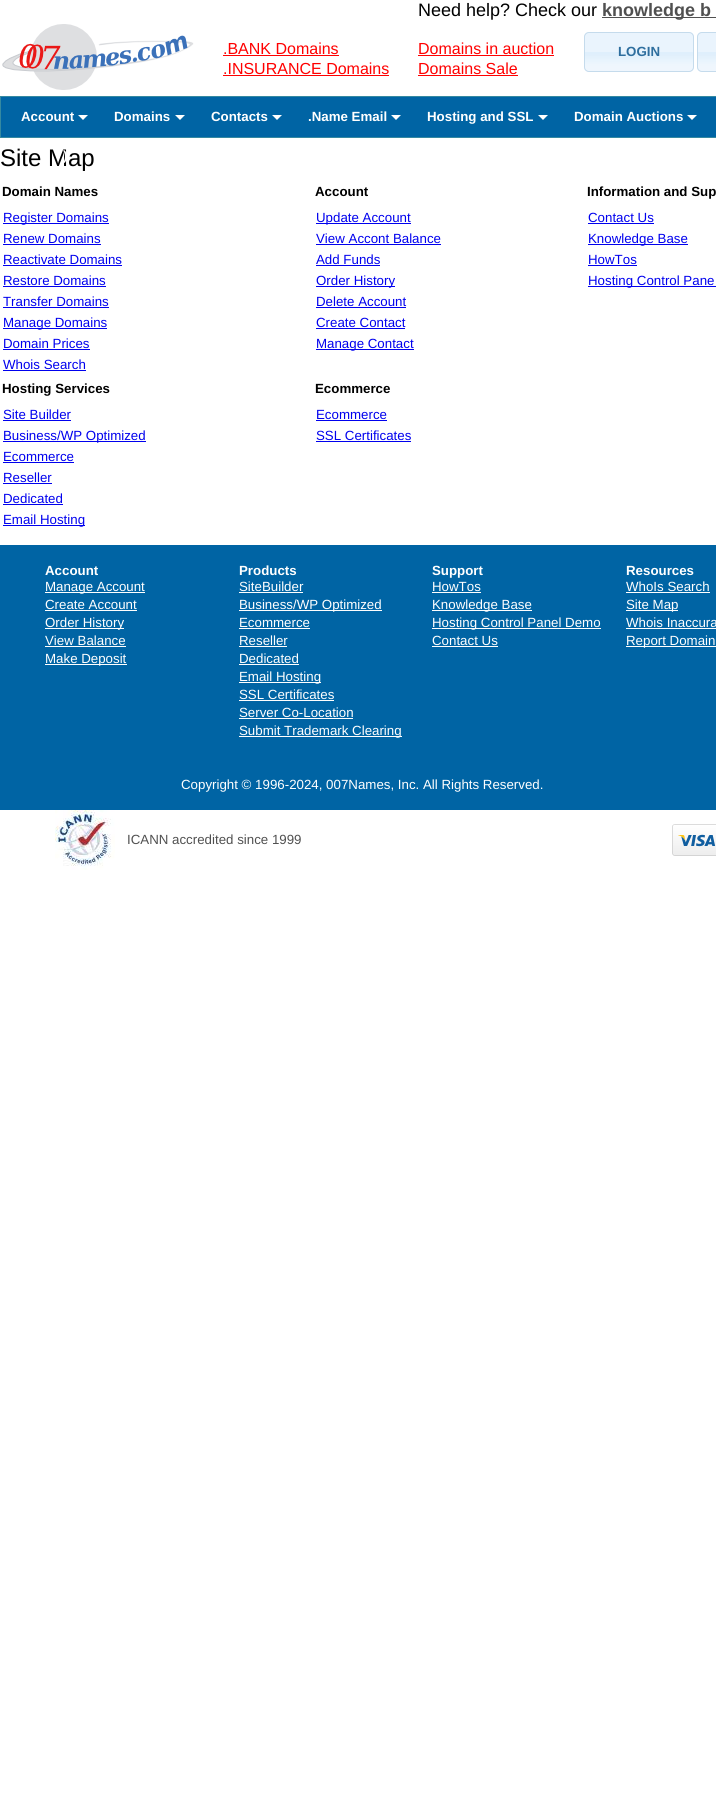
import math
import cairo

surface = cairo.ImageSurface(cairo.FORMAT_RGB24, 716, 1805)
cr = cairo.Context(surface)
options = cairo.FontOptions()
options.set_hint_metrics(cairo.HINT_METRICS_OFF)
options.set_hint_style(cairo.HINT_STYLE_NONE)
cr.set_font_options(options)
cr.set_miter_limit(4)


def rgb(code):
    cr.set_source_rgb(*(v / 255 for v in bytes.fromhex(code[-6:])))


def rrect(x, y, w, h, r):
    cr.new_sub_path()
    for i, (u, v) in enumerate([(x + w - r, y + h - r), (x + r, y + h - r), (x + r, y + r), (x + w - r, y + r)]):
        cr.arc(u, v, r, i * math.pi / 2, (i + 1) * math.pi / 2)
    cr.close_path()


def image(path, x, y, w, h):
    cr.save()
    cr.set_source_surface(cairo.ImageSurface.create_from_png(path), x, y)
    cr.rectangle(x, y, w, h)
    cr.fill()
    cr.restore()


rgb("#ffffff")
cr.paint()
rgb("#505050")
cr.rectangle(602, 17, 114, 1)
cr.fill()
image("img/1.png", 2, 24, 192, 66)
for x, y, w, h, color in [
    (223, 55, 116, 1, "#ff0000"),
    (223, 75, 166, 1, "#ff0000"),
    (418, 55, 136, 1, "#ff0000"),
    (418, 75, 100, 1, "#ff0000"),
]:
    rgb(color)
    cr.rectangle(x, y, w, h)
    cr.fill()
image("img/2.png", 584, 32, 110, 40)
rrect(584.5, 32.5, 109, 39, 4.5)
rgb("#c5dbec")
cr.set_line_width(1)
cr.stroke()
image("img/3.png", 697, 32, 19, 40)
rrect(697.5, 32.5, 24, 39, 4.5)
cr.stroke()
rgb("#0064a4")
cr.rectangle(0.5, 96.5, 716, 41)
cr.fill_preserve()
rgb("#3589a1")
cr.stroke()
rgb("#ffffff")
cr.new_path()
cr.move_to(78, 115)
cr.line_to(88, 115)
cr.line_to(83, 120)
cr.close_path()
cr.fill()
cr.new_path()
cr.move_to(175, 115)
cr.line_to(185, 115)
cr.line_to(180, 120)
cr.close_path()
cr.fill()
cr.new_path()
cr.move_to(272, 115)
cr.line_to(282, 115)
cr.line_to(277, 120)
cr.close_path()
cr.fill()
cr.new_path()
cr.move_to(391, 115)
cr.line_to(401, 115)
cr.line_to(396, 120)
cr.close_path()
cr.fill()
cr.new_path()
cr.move_to(538, 115)
cr.line_to(548, 115)
cr.line_to(543, 120)
cr.close_path()
cr.fill()
cr.new_path()
cr.move_to(687, 115)
cr.line_to(697, 115)
cr.line_to(692, 120)
cr.close_path()
cr.fill()
for x, y, w, h, color in [
    (3, 223, 106, 1, "#0000ee"),
    (3, 244, 98, 1, "#0000ee"),
    (3, 265, 119, 1, "#0000ee"),
    (3, 286, 103, 1, "#0000ee"),
    (3, 307, 106, 1, "#0000ee"),
    (3, 328, 104, 1, "#0000ee"),
    (3, 349, 87, 1, "#0000ee"),
    (3, 370, 83, 1, "#0000ee"),
    (316, 223, 95, 1, "#0000ee"),
    (316, 244, 125, 1, "#0000ee"),
    (316, 265, 64, 1, "#0000ee"),
    (316, 286, 79, 1, "#0000ee"),
    (316, 307, 90, 1, "#0000ee"),
    (316, 328, 89, 1, "#0000ee"),
    (316, 349, 98, 1, "#0000ee"),
    (588, 223, 66, 1, "#0000ee"),
    (588, 244, 100, 1, "#0000ee"),
    (588, 265, 49, 1, "#0000ee"),
    (588, 286, 128, 1, "#0000ee"),
    (3, 420, 68, 1, "#0000ee"),
    (3, 441, 143, 1, "#0000ee"),
    (3, 462, 71, 1, "#0000ee"),
    (3, 483, 49, 1, "#0000ee"),
    (3, 504, 60, 1, "#0000ee"),
    (3, 525, 82, 1, "#0000ee"),
    (316, 420, 71, 1, "#0000ee"),
    (316, 441, 95, 1, "#0000ee"),
    (0, 545, 716, 265, "#0064a4"),
    (45, 592, 100, 1, "#ffffff"),
    (45, 610, 92, 1, "#ffffff"),
    (45, 628, 79, 1, "#ffffff"),
    (45, 646, 81, 1, "#ffffff"),
    (45, 664, 82, 1, "#ffffff"),
    (239, 592, 64, 1, "#ffffff"),
    (239, 610, 143, 1, "#ffffff"),
    (239, 628, 71, 1, "#ffffff"),
    (239, 646, 48, 1, "#ffffff"),
    (239, 664, 60, 1, "#ffffff"),
    (239, 682, 82, 1, "#ffffff"),
    (239, 700, 95, 1, "#ffffff"),
    (239, 718, 114, 1, "#ffffff"),
    (239, 736, 163, 1, "#ffffff"),
    (432, 592, 49, 1, "#ffffff"),
    (432, 610, 100, 1, "#ffffff"),
    (432, 628, 169, 1, "#ffffff"),
    (432, 646, 66, 1, "#ffffff"),
    (626, 592, 84, 1, "#ffffff"),
    (626, 610, 52, 1, "#ffffff"),
    (626, 628, 90, 1, "#ffffff"),
    (626, 646, 90, 1, "#ffffff"),
]:
    rgb(color)
    cr.rectangle(x, y, w, h)
    cr.fill()
image("img/4.png", 55, 810, 60, 60)
image("img/5.png", 672, 824, 44, 32)
cr.select_font_face("Liberation Sans")
cr.set_font_size(18)
rgb("#000000")
cr.move_to(418, 16)
cr.show_text("Need help? Check our")
cr.select_font_face("Liberation Sans", cairo.FONT_SLANT_NORMAL, cairo.FONT_WEIGHT_BOLD)
rgb("#505050")
cr.move_to(602, 16)
cr.show_text("knowledge b")
cr.select_font_face("Liberation Sans")
cr.set_font_size(16)
rgb("#ff0000")
for x, y, s in [
    (223, 54, ".BANK Domains"),
    (223, 74, ".INSURANCE Domains"),
    (418, 54, "Domains in auction"),
    (418, 74, "Domains Sale"),
]:
    cr.move_to(x, y)
    cr.show_text(s)
cr.select_font_face("Liberation Sans", cairo.FONT_SLANT_NORMAL, cairo.FONT_WEIGHT_BOLD)
cr.set_font_size(13.3)
rgb("#2e6e9e")
cr.move_to(618, 56)
cr.show_text("LOGIN")
rgb("#ffffff")
for x, y, s in [
    (21, 121, "Account"),
    (114, 121, "Domains"),
    (211, 121, "Contacts"),
    (308, 121, ".Name Email"),
    (427, 121, "Hosting and SSL"),
    (574, 121, "Domain Auctions"),
]:
    cr.move_to(x, y)
    cr.show_text(s)
cr.select_font_face("Liberation Sans")
cr.set_font_size(24)
rgb("#000000")
cr.move_to(0, 166)
cr.show_text("Site Map")
cr.select_font_face("Liberation Sans", cairo.FONT_SLANT_NORMAL, cairo.FONT_WEIGHT_BOLD)
cr.set_font_size(13.3)
rgb("#ffffff")
cr.move_to(63, 160)
cr.show_text(")")
rgb("#000000")
cr.move_to(2, 196)
cr.show_text("Domain Names")
cr.select_font_face("Liberation Sans")
rgb("#0000ee")
for x, y, s in [
    (3, 222, "Register Domains"),
    (3, 243, "Renew Domains"),
    (3, 264, "Reactivate Domains"),
    (3, 285, "Restore Domains"),
    (3, 306, "Transfer Domains"),
    (3, 327, "Manage Domains"),
    (3, 348, "Domain Prices"),
    (3, 369, "Whois Search"),
]:
    cr.move_to(x, y)
    cr.show_text(s)
cr.select_font_face("Liberation Sans", cairo.FONT_SLANT_NORMAL, cairo.FONT_WEIGHT_BOLD)
rgb("#000000")
cr.move_to(315, 196)
cr.show_text("Account")
cr.select_font_face("Liberation Sans")
rgb("#0000ee")
for x, y, s in [
    (316, 222, "Update Account"),
    (316, 243, "View Accont Balance"),
    (316, 264, "Add Funds"),
    (316, 285, "Order History"),
    (316, 306, "Delete Account"),
    (316, 327, "Create Contact"),
    (316, 348, "Manage Contact"),
]:
    cr.move_to(x, y)
    cr.show_text(s)
cr.select_font_face("Liberation Sans", cairo.FONT_SLANT_NORMAL, cairo.FONT_WEIGHT_BOLD)
rgb("#000000")
cr.move_to(587, 196)
cr.show_text("Information and Sup")
cr.select_font_face("Liberation Sans")
rgb("#0000ee")
for x, y, s in [
    (588, 222, "Contact Us"),
    (588, 243, "Knowledge Base"),
    (588, 264, "HowTos"),
    (588, 285, "Hosting Control Pane"),
]:
    cr.move_to(x, y)
    cr.show_text(s)
cr.select_font_face("Liberation Sans", cairo.FONT_SLANT_NORMAL, cairo.FONT_WEIGHT_BOLD)
rgb("#000000")
cr.move_to(2, 393)
cr.show_text("Hosting Services")
cr.select_font_face("Liberation Sans")
rgb("#0000ee")
for x, y, s in [
    (3, 419, "Site Builder"),
    (3, 440, "Business/WP Optimized"),
    (3, 461, "Ecommerce"),
    (3, 482, "Reseller"),
    (3, 503, "Dedicated"),
    (3, 524, "Email Hosting"),
]:
    cr.move_to(x, y)
    cr.show_text(s)
cr.select_font_face("Liberation Sans", cairo.FONT_SLANT_NORMAL, cairo.FONT_WEIGHT_BOLD)
rgb("#000000")
cr.move_to(315, 393)
cr.show_text("Ecommerce")
cr.select_font_face("Liberation Sans")
rgb("#0000ee")
cr.move_to(316, 419)
cr.show_text("Ecommerce")
cr.move_to(316, 440)
cr.show_text("SSL Certificates")
cr.select_font_face("Liberation Sans", cairo.FONT_SLANT_NORMAL, cairo.FONT_WEIGHT_BOLD)
rgb("#ffffff")
cr.move_to(45, 575)
cr.show_text("Account")
cr.select_font_face("Liberation Sans")
for x, y, s in [
    (45, 591, "Manage Account"),
    (45, 609, "Create Account"),
    (45, 627, "Order History"),
    (45, 645, "View Balance"),
    (45, 663, "Make Deposit"),
]:
    cr.move_to(x, y)
    cr.show_text(s)
cr.select_font_face("Liberation Sans", cairo.FONT_SLANT_NORMAL, cairo.FONT_WEIGHT_BOLD)
cr.move_to(239, 575)
cr.show_text("Products")
cr.select_font_face("Liberation Sans")
for x, y, s in [
    (239, 591, "SiteBuilder"),
    (239, 609, "Business/WP Optimized"),
    (239, 627, "Ecommerce"),
    (239, 645, "Reseller"),
    (239, 663, "Dedicated"),
    (239, 681, "Email Hosting"),
    (239, 699, "SSL Certificates"),
    (239, 717, "Server Co-Location"),
    (239, 735, "Submit Trademark Clearing"),
]:
    cr.move_to(x, y)
    cr.show_text(s)
cr.select_font_face("Liberation Sans", cairo.FONT_SLANT_NORMAL, cairo.FONT_WEIGHT_BOLD)
cr.move_to(432, 575)
cr.show_text("Support")
cr.select_font_face("Liberation Sans")
for x, y, s in [
    (432, 591, "HowTos"),
    (432, 609, "Knowledge Base"),
    (432, 627, "Hosting Control Panel Demo"),
    (432, 645, "Contact Us"),
]:
    cr.move_to(x, y)
    cr.show_text(s)
cr.select_font_face("Liberation Sans", cairo.FONT_SLANT_NORMAL, cairo.FONT_WEIGHT_BOLD)
cr.move_to(626, 575)
cr.show_text("Resources")
cr.select_font_face("Liberation Sans")
for x, y, s in [
    (626, 591, "WhoIs Search"),
    (626, 609, "Site Map"),
    (626, 627, "Whois Inaccura"),
    (626, 645, "Report Domain"),
    (181, 789, "Copyright © 1996-2024, 007Names, Inc. All Rights Reserved."),
]:
    cr.move_to(x, y)
    cr.show_text(s)
rgb("#505050")
cr.move_to(127, 844)
cr.show_text("ICANN accredited since 1999")
surface.write_to_png("page.png")
